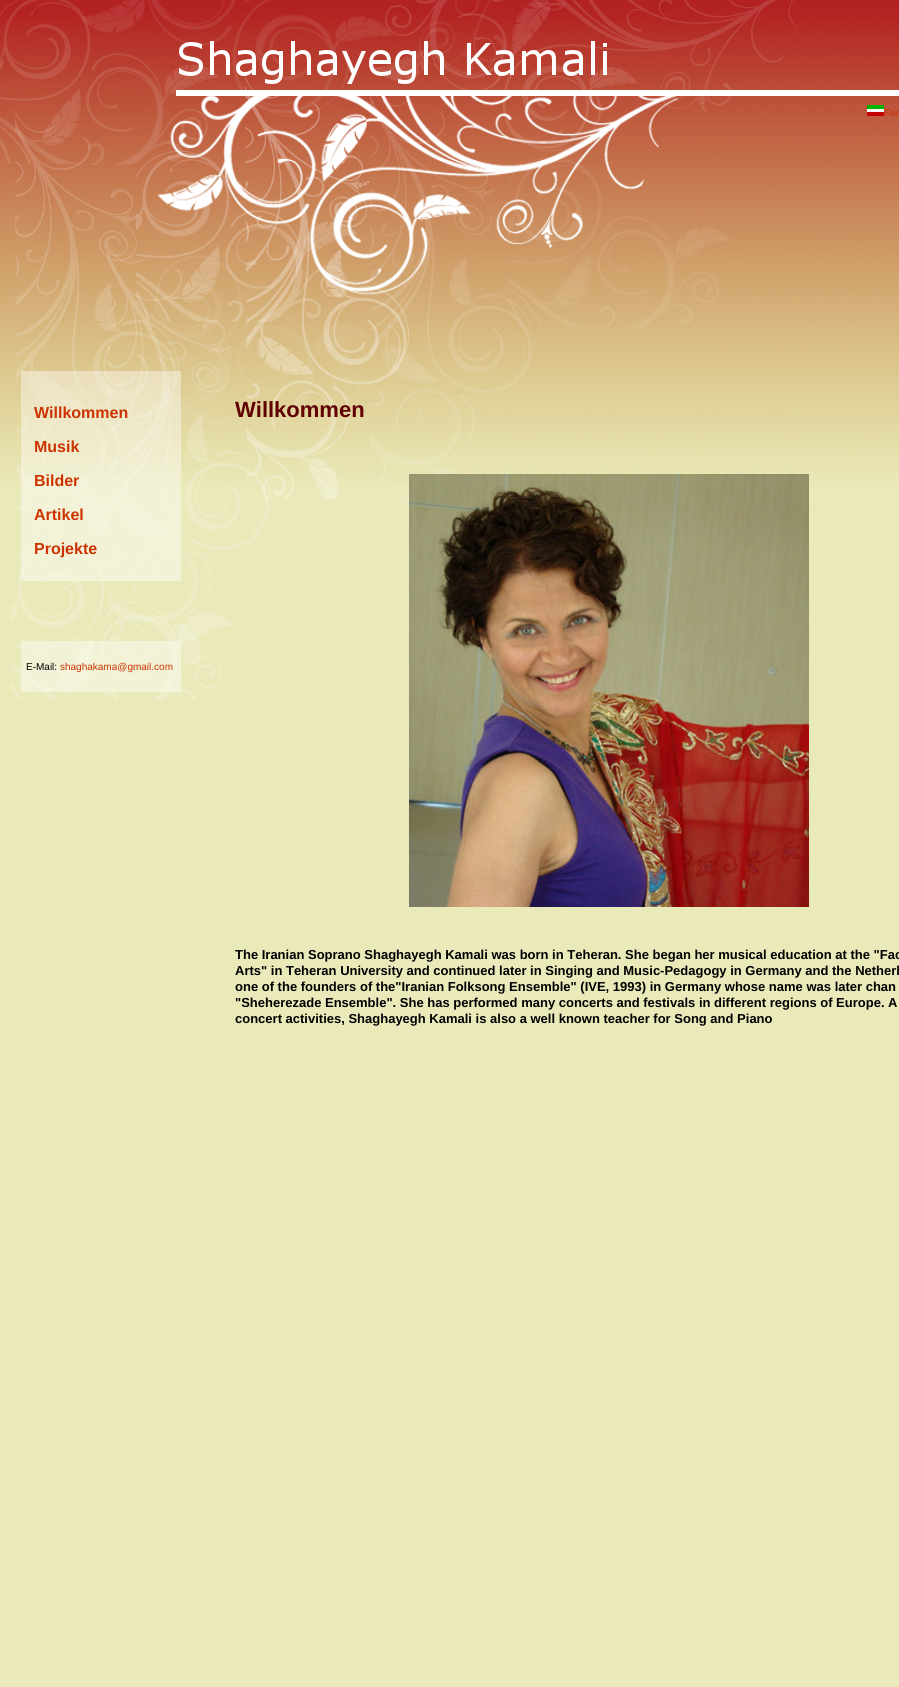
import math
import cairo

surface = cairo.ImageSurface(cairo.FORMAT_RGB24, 899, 1687)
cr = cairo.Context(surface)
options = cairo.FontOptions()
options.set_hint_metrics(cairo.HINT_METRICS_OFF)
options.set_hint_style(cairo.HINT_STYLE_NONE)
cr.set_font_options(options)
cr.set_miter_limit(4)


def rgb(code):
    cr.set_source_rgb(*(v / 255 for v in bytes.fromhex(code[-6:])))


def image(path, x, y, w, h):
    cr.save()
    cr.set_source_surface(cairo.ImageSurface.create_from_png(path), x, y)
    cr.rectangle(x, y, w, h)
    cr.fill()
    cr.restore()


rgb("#eae9ba")
cr.paint()
image("img/1.png", 0, 0, 899, 700)
image("img/2.png", 867, 105, 17, 11)
cr.set_source_rgba(1, 1, 1, 0.4)
cr.rectangle(21, 371, 160, 210)
cr.fill()
cr.rectangle(21, 641, 160, 51)
cr.fill()
image("img/3.png", 409, 474, 400, 433)
cr.select_font_face("Liberation Sans")
cr.set_font_size(10)
rgb("#cc3300")
cr.move_to(884, 116)
cr.show_text("Far")
cr.select_font_face("Liberation Sans", cairo.FONT_SLANT_NORMAL, cairo.FONT_WEIGHT_BOLD)
cr.set_font_size(16)
for x, y, s in [
    (34, 418, "Willkommen"),
    (34, 452, "Musik"),
    (34, 486, "Bilder"),
    (34, 520, "Artikel"),
    (34, 554, "Projekte"),
]:
    cr.move_to(x, y)
    cr.show_text(s)
cr.select_font_face("Liberation Sans")
cr.set_font_size(10)
rgb("#000000")
cr.move_to(26, 670)
cr.show_text("E-Mail:")
rgb("#cc3300")
cr.move_to(60, 670)
cr.show_text("shaghakama@gmail.com")
cr.select_font_face("Liberation Sans", cairo.FONT_SLANT_NORMAL, cairo.FONT_WEIGHT_BOLD)
cr.set_font_size(22)
rgb("#600000")
cr.move_to(235, 417)
cr.show_text("Willkommen")
cr.set_font_size(13)
rgb("#000000")
for x, y, s in [
    (235, 959, "The Iranian Soprano Shaghayegh Kamali was born in Teheran. She began her musical education at the \"Fac"),
    (235, 975, "Arts\" in Teheran University and continued later in Singing and Music-Pedagogy in Germany and the Netherl"),
    (235, 991, "one of the founders of the\"Iranian Folksong Ensemble\" (IVE, 1993) in Germany whose name was later chan"),
    (235, 1007, "\"Sheherezade Ensemble\". She has performed many concerts and festivals in different regions of Europe. A"),
    (235, 1023, "concert activities, Shaghayegh Kamali is also a well known teacher for Song and Piano"),
]:
    cr.move_to(x, y)
    cr.show_text(s)
surface.write_to_png("page.png")
